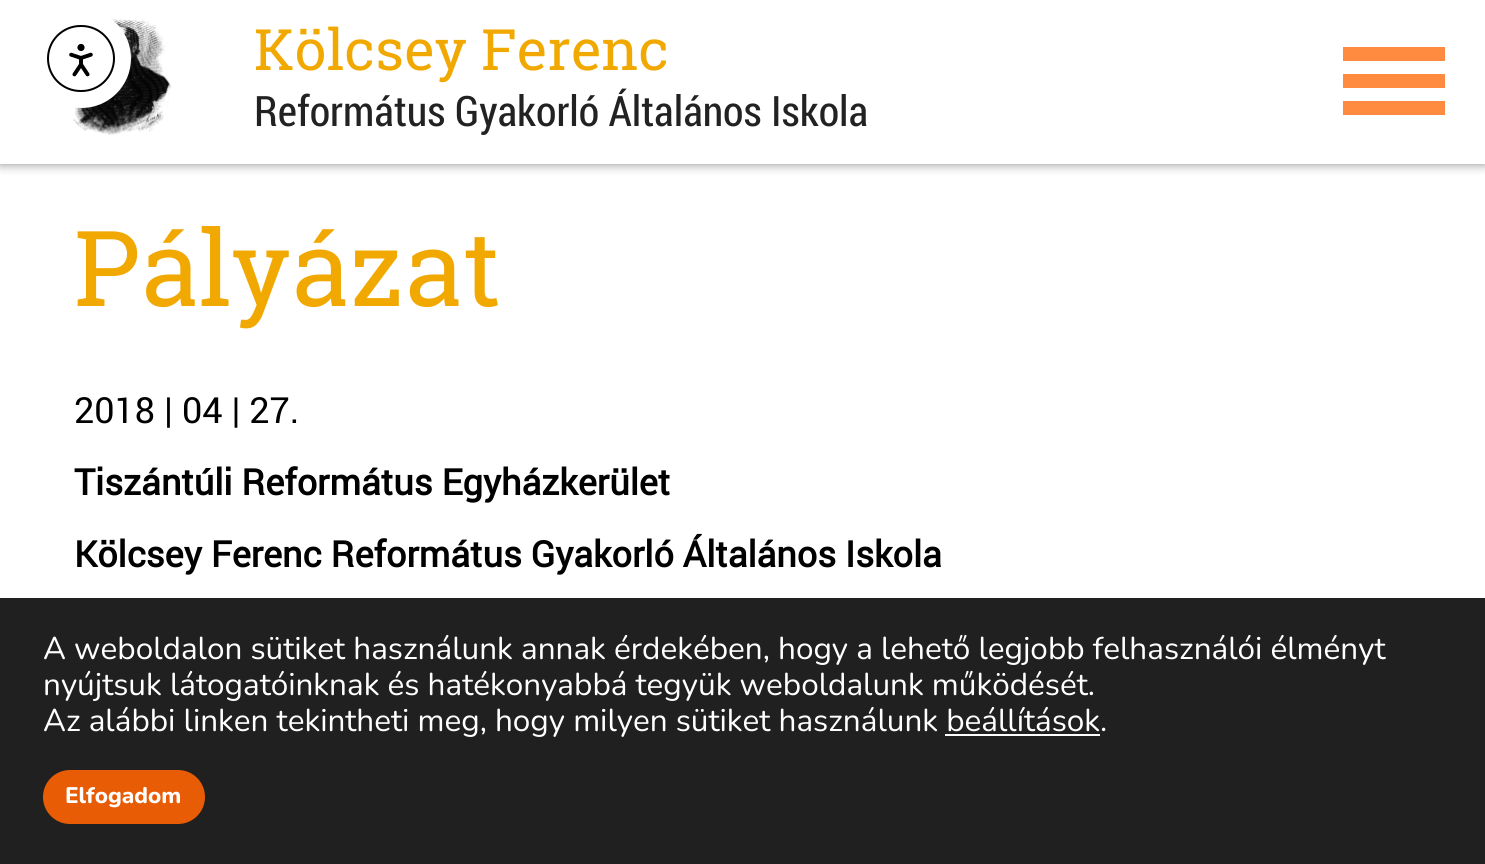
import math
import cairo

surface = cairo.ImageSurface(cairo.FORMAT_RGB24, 1485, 864)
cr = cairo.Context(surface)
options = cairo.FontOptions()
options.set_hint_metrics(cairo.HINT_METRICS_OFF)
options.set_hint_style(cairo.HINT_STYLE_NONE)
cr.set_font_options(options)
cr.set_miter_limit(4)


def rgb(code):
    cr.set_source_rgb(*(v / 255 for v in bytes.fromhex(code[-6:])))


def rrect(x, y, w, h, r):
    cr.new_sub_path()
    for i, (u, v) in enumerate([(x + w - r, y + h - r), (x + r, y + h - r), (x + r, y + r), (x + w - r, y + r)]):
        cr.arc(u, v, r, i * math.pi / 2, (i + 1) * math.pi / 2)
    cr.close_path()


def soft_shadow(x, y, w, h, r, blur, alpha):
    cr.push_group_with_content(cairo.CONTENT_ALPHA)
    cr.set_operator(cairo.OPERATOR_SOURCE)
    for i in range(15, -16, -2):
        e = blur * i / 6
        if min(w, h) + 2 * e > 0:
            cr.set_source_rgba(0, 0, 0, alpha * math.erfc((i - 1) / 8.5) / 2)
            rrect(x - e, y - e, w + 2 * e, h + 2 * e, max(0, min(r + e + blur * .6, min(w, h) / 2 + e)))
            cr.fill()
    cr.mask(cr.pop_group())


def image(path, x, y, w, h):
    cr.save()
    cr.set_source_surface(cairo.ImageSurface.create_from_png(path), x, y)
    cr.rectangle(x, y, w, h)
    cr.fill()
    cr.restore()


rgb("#ffffff")
cr.paint()
cr.save()
cr.rectangle(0, 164, 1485, 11)
cr.clip()
rgb("#888888")
soft_shadow(0, 0, 1485, 164, 0, 5.5, 1)
cr.restore()
image("img/2.png", 73, 18, 99, 117)
rgb("#ffffff")
cr.arc(81.5, 58.5, 49.5, 0, 2 * math.pi)
cr.fill()
rrect(48, 26, 66, 65, 32.5)
rgb("#000000")
cr.stroke()
image("img/1.png", 69, 43, 24, 34)
for x, y, w, h, color in [
    (1343, 47, 102, 14, "#ff8b41"),
    (1343, 74, 102, 14, "#ff8b41"),
    (1343, 101, 102, 14, "#ff8b41"),
    (0, 598, 1485, 266, "#202020"),
    (945, 734, 155, 2, "#ffffff"),
]:
    rgb(color)
    cr.rectangle(x, y, w, h)
    cr.fill()
rgb("#e85c05")
rrect(43, 770, 162, 54, 27)
cr.fill()
cr.select_font_face("Roboto Slab")
cr.set_font_size(57)
rgb("#f1a801")
cr.move_to(254, 70)
cr.show_text("Kölcsey Ferenc")
cr.select_font_face("Roboto Condensed")
cr.set_font_size(42)
rgb("#222222")
cr.move_to(254, 126)
cr.show_text("Református Gyakorló Általános Iskola")
cr.select_font_face("Roboto Slab")
cr.set_font_size(105)
rgb("#f1a801")
cr.move_to(74, 306)
cr.show_text("Pályázat")
cr.select_font_face("Roboto")
cr.set_font_size(36)
rgb("#000000")
cr.move_to(74, 423)
cr.show_text("2018 | 04 | 27.")
cr.select_font_face("Roboto", cairo.FONT_SLANT_NORMAL, cairo.FONT_WEIGHT_BOLD)
cr.move_to(74, 495)
cr.show_text("Tiszántúli Református Egyházkerület")
cr.move_to(74, 567)
cr.show_text("Kölcsey Ferenc Református Gyakorló Általános Iskola")
cr.select_font_face("Nunito")
cr.set_font_size(31.5)
rgb("#ffffff")
for x, y, s in [
    (43, 659, "A weboldalon sütiket használunk annak érdekében, hogy a lehető legjobb felhasználói élményt"),
    (43, 695, "nyújtsuk látogatóinknak és hatékonyabbá tegyük weboldalunk működését."),
    (43, 731, "Az alábbi linken tekintheti meg, hogy milyen sütiket használunk beállítások."),
]:
    cr.move_to(x, y)
    cr.show_text(s)
cr.select_font_face("Nunito ExtraBold")
cr.set_font_size(22.5)
cr.move_to(65, 803)
cr.show_text("Elfogadom")
surface.write_to_png("page.png")
